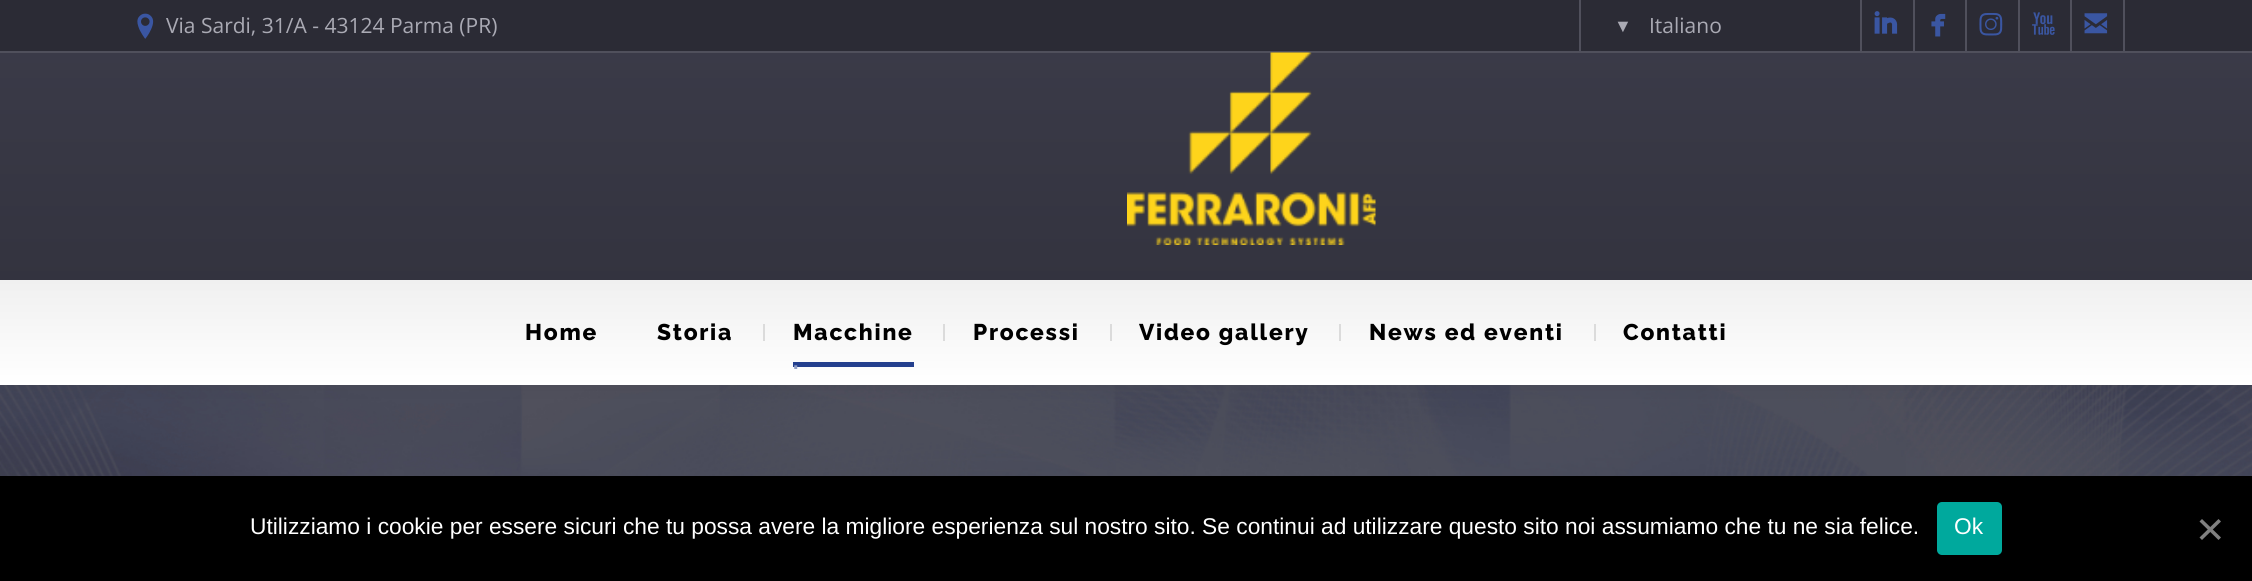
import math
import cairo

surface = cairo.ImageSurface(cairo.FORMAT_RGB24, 2252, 581)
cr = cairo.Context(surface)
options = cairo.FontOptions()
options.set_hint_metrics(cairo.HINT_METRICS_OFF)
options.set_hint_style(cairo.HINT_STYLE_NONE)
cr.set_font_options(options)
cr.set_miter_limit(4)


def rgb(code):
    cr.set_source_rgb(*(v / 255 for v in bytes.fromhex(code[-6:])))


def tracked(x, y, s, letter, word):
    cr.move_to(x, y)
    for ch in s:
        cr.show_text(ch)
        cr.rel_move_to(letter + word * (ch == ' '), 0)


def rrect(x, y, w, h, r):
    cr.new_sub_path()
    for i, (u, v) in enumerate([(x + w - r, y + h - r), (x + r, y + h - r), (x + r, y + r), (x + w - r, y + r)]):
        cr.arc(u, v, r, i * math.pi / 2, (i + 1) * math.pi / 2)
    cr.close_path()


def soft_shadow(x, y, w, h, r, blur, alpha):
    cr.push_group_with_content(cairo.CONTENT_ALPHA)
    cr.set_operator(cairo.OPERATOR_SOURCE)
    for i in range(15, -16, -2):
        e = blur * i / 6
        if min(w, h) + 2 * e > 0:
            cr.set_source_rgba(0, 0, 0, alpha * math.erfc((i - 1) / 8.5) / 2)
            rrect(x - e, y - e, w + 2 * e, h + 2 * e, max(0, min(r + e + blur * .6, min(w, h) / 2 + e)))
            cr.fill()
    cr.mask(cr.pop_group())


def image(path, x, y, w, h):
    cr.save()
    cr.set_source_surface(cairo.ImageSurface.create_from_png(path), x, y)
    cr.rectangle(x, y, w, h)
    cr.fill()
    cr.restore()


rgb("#ffffff")
cr.paint()
image("img/8.png", 0, 385, 2252, 91)
rgb("#000000")
soft_shadow(0, 4, 2252, 385, 0, 9, 0.05)
gradient = cairo.LinearGradient(1126, 0, 1126, 385)
gradient.add_color_stop_rgba(0, 0.235, 0.235, 0.29, 1)
gradient.add_color_stop_rgba(1, 0.188, 0.188, 0.231, 1)
cr.set_source(gradient)
cr.rectangle(0, 53, 2252, 227)
cr.fill()
rgb("#2b2b35")
cr.rectangle(0, 0, 2252, 51)
cr.fill()
rgb("#50505c")
cr.rectangle(0, 51, 2252, 2)
cr.fill()
image("img/1.png", 137, 13, 17, 26)
for x, y, w, h, color in [
    (1860, 0, 2, 51, "#50505c"),
    (1579, 0, 2, 51, "#50505c"),
    (1913, 0, 2, 51, "#50505c"),
]:
    rgb(color)
    cr.rectangle(x, y, w, h)
    cr.fill()
image("img/2.png", 1874, 11, 24, 23)
cr.rectangle(1965, 0, 2, 51)
cr.fill()
image("img/3.png", 1931, 13, 15, 24)
cr.rectangle(2018, 0, 2, 51)
cr.fill()
image("img/4.png", 1979, 13, 24, 23)
cr.rectangle(2070, 0, 2, 51)
cr.fill()
image("img/5.png", 2032, 12, 23, 23)
cr.rectangle(2123, 0, 2, 51)
cr.fill()
image("img/6.png", 2084, 13, 24, 21)
image("img/7.png", 1127, 52, 249, 193)
gradient = cairo.LinearGradient(1126, 280, 1126, 385)
gradient.add_color_stop_rgba(0, 0.941, 0.941, 0.941, 1)
gradient.add_color_stop_rgba(1, 1, 1, 1, 1)
cr.set_source(gradient)
cr.rectangle(0, 280, 2252, 105)
cr.fill()
for x, y, w, h, color in [
    (763, 324, 2, 17, "#dbdbdb"),
    (793, 362, 121, 5, "#24408e"),
    (943, 324, 2, 17, "#dbdbdb"),
    (1110, 324, 2, 17, "#dbdbdb"),
    (1339, 324, 2, 17, "#dbdbdb"),
    (1594, 324, 2, 17, "#dbdbdb"),
    (0, 476, 2252, 105, "#000000"),
]:
    rgb(color)
    cr.rectangle(x, y, w, h)
    cr.fill()
rgb("#00a99d")
rrect(1937, 502, 65, 53, 5)
cr.fill()
rgb("#808080")
cr.new_path()
cr.move_to(2218.5, 519)
cr.line_to(2221, 521.5)
cr.line_to(2202, 540)
cr.line_to(2199.5, 537.5)
cr.close_path()
cr.fill()
cr.new_path()
cr.move_to(2199.5, 521.5)
cr.line_to(2202, 519)
cr.line_to(2221, 537.5)
cr.line_to(2218.5, 540)
cr.close_path()
cr.fill()
cr.select_font_face("Open Sans")
cr.set_font_size(21)
rgb("#aaaab4")
cr.move_to(166, 33)
cr.show_text("Via Sardi, 31/A - 43124 Parma (PR)")
cr.select_font_face("Liberation Serif")
cr.set_font_size(18)
cr.move_to(1614, 32)
cr.show_text("▼")
cr.select_font_face("Open Sans")
cr.set_font_size(21)
cr.move_to(1649, 33)
cr.show_text("Italiano")
cr.select_font_face("Raleway ExtraBold")
cr.set_font_size(22.75)
rgb("#000000")
for x, y, s in [
    (525, 340, "Home"),
    (657, 340, "Storia"),
    (793, 340, "Macchine"),
]:
    tracked(x, y, s, 1.75, 0)
rgb("#909ec5")
tracked(793, 369, ".", 1.75, 0)
rgb("#000000")
for x, y, s in [
    (973, 340, "Processi"),
    (1139, 340, "Video gallery"),
    (1369, 340, "News ed eventi"),
    (1623, 340, "Contatti"),
]:
    tracked(x, y, s, 1.75, 0)
cr.select_font_face("Liberation Sans")
rgb("#ffffff")
cr.move_to(250, 534)
cr.show_text("Utilizziamo i cookie per essere sicuri che tu possa avere la migliore esperienza sul nostro sito. Se continui ad utilizzare questo sito noi assumiamo che tu ne sia felice.")
cr.move_to(1954, 534)
cr.show_text("Ok")
surface.write_to_png("page.png")
